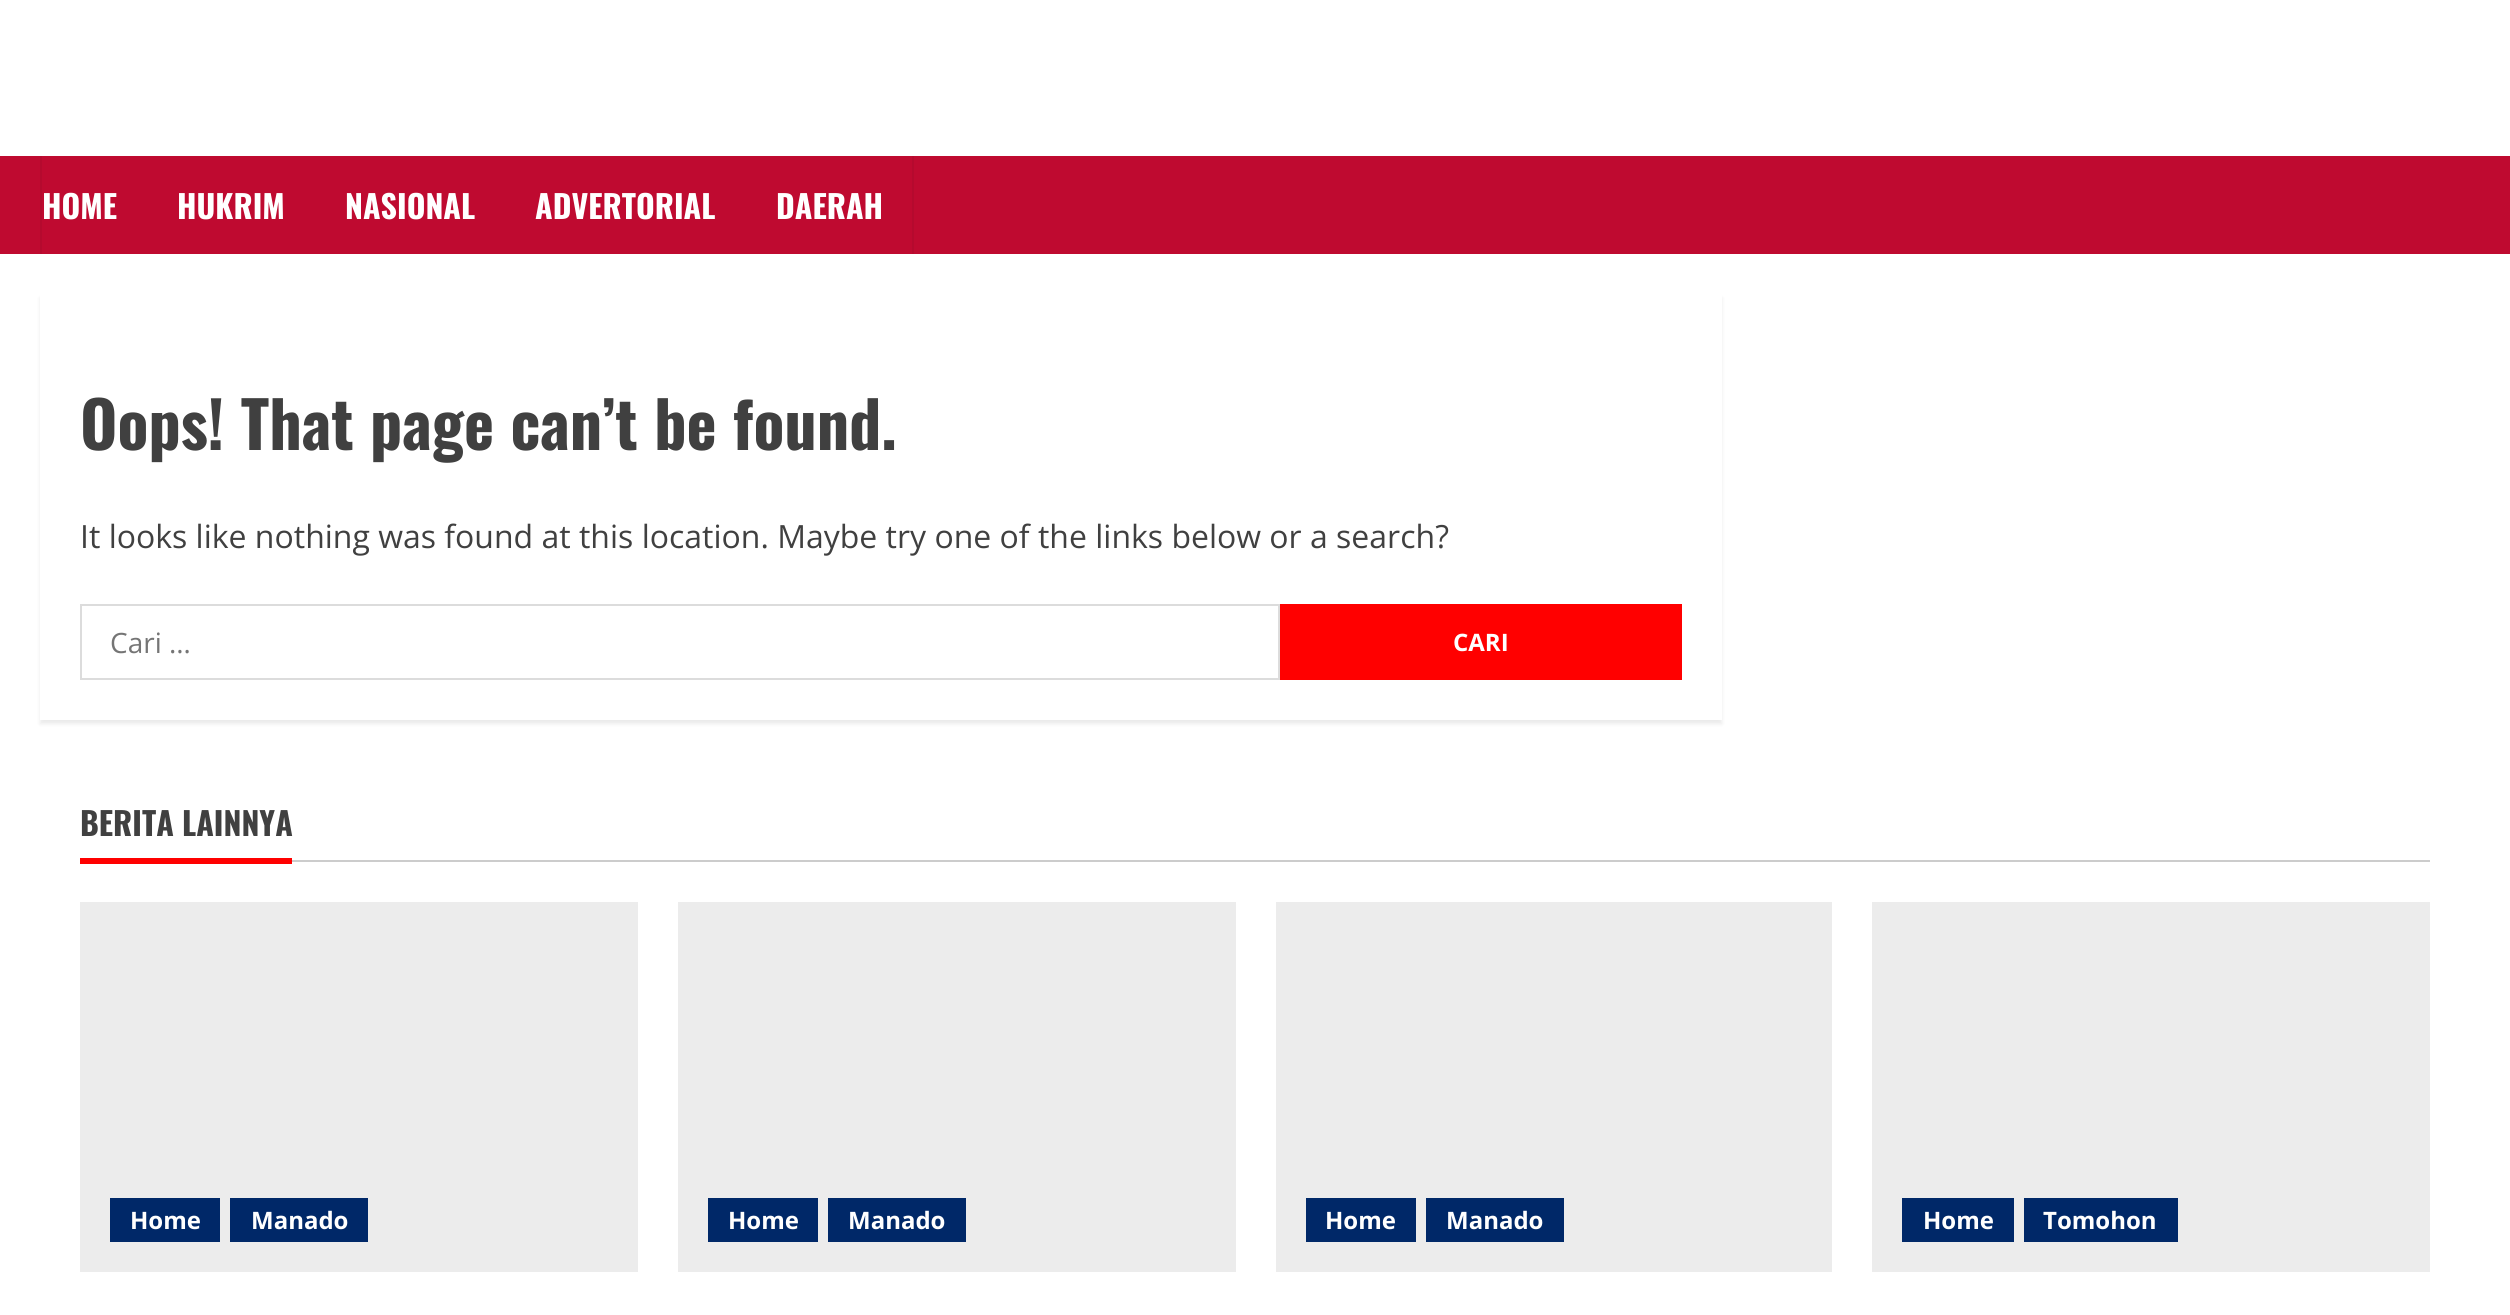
import math
import cairo

surface = cairo.ImageSurface(cairo.FORMAT_RGB24, 2510, 1315)
cr = cairo.Context(surface)
options = cairo.FontOptions()
options.set_hint_metrics(cairo.HINT_METRICS_OFF)
options.set_hint_style(cairo.HINT_STYLE_NONE)
cr.set_font_options(options)
cr.set_miter_limit(4)


def rgb(code):
    cr.set_source_rgb(*(v / 255 for v in bytes.fromhex(code[-6:])))


def rrect(x, y, w, h, r):
    cr.new_sub_path()
    for i, (u, v) in enumerate([(x + w - r, y + h - r), (x + r, y + h - r), (x + r, y + r), (x + w - r, y + r)]):
        cr.arc(u, v, r, i * math.pi / 2, (i + 1) * math.pi / 2)
    cr.close_path()


def soft_shadow(x, y, w, h, r, blur, alpha):
    cr.push_group_with_content(cairo.CONTENT_ALPHA)
    cr.set_operator(cairo.OPERATOR_SOURCE)
    for i in range(15, -16, -2):
        e = blur * i / 6
        if min(w, h) + 2 * e > 0:
            cr.set_source_rgba(0, 0, 0, alpha * math.erfc((i - 1) / 8.5) / 2)
            rrect(x - e, y - e, w + 2 * e, h + 2 * e, max(0, min(r + e + blur * .6, min(w, h) / 2 + e)))
            cr.fill()
    cr.mask(cr.pop_group())


rgb("#ffffff")
cr.paint()
for x, y, w, h, color in [
    (0, 156, 2510, 98, "#bf0a30"),
    (912, 156, 2, 98, "#b50a2e"),
    (40, 156, 2, 98, "#b50a2e"),
]:
    rgb(color)
    cr.rectangle(x, y, w, h)
    cr.fill()
cr.save()
cr.set_fill_rule(cairo.FILL_RULE_EVEN_ODD)
cr.new_path()
cr.move_to(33, 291)
cr.line_to(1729, 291)
cr.line_to(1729, 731)
cr.line_to(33, 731)
cr.close_path()
cr.move_to(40, 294)
cr.line_to(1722, 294)
cr.line_to(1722, 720)
cr.line_to(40, 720)
cr.close_path()
cr.clip()
rgb("#000000")
soft_shadow(40, 298, 1682, 426, 0, 2, 0.08)
cr.restore()
cr.rectangle(81, 605, 1198, 74)
rgb("#dcdcdc")
cr.stroke()
for x, y, w, h, color in [
    (1280, 604, 402, 76, "#ff0000"),
    (292, 860, 2138, 2, "#cccccc"),
    (80, 858, 212, 6, "#ff0000"),
    (80, 902, 558, 370, "#ececec"),
    (110, 1198, 110, 44, "#002868"),
    (230, 1198, 138, 44, "#002868"),
    (678, 902, 558, 370, "#ececec"),
    (708, 1198, 110, 44, "#002868"),
    (828, 1198, 138, 44, "#002868"),
    (1276, 902, 556, 370, "#ececec"),
    (1306, 1198, 110, 44, "#002868"),
    (1426, 1198, 138, 44, "#002868"),
    (1872, 902, 558, 370, "#ececec"),
    (1902, 1198, 112, 44, "#002868"),
    (2024, 1198, 154, 44, "#002868"),
]:
    rgb(color)
    cr.rectangle(x, y, w, h)
    cr.fill()
cr.select_font_face("Oswald", cairo.FONT_SLANT_NORMAL, cairo.FONT_WEIGHT_BOLD)
cr.set_font_size(32)
rgb("#ffffff")
for x, y, s in [
    (42, 219, "HOME"),
    (177, 219, "HUKRIM"),
    (345, 219, "NASIONAL"),
    (535, 219, "ADVERTORIAL"),
    (776, 219, "DAERAH"),
]:
    cr.move_to(x, y)
    cr.show_text(s)
cr.set_font_size(64)
rgb("#404040")
cr.move_to(80, 450)
cr.show_text("Oops! That page can’t be found.")
cr.select_font_face("Open Sans")
cr.set_font_size(32)
cr.move_to(80, 548)
cr.show_text("It looks like nothing was found at this location. Maybe try one of the links below or a search?")
cr.set_font_size(28)
rgb("#757575")
cr.move_to(110, 653)
cr.show_text("Cari …")
cr.select_font_face("Open Sans", cairo.FONT_SLANT_NORMAL, cairo.FONT_WEIGHT_BOLD)
cr.set_font_size(24)
rgb("#ffffff")
cr.move_to(1453, 651)
cr.show_text("CARI")
cr.select_font_face("Oswald", cairo.FONT_SLANT_NORMAL, cairo.FONT_WEIGHT_BOLD)
cr.set_font_size(32)
rgb("#404040")
cr.move_to(80, 836)
cr.show_text("BERITA LAINNYA")
cr.select_font_face("Open Sans", cairo.FONT_SLANT_NORMAL, cairo.FONT_WEIGHT_BOLD)
cr.set_font_size(24)
rgb("#ffffff")
for x, y, s in [
    (130, 1229, "Home"),
    (251, 1229, "Manado"),
    (728, 1229, "Home"),
    (848, 1229, "Manado"),
    (1325, 1229, "Home"),
    (1446, 1229, "Manado"),
    (1923, 1229, "Home"),
    (2043, 1229, "Tomohon"),
]:
    cr.move_to(x, y)
    cr.show_text(s)
surface.write_to_png("page.png")
